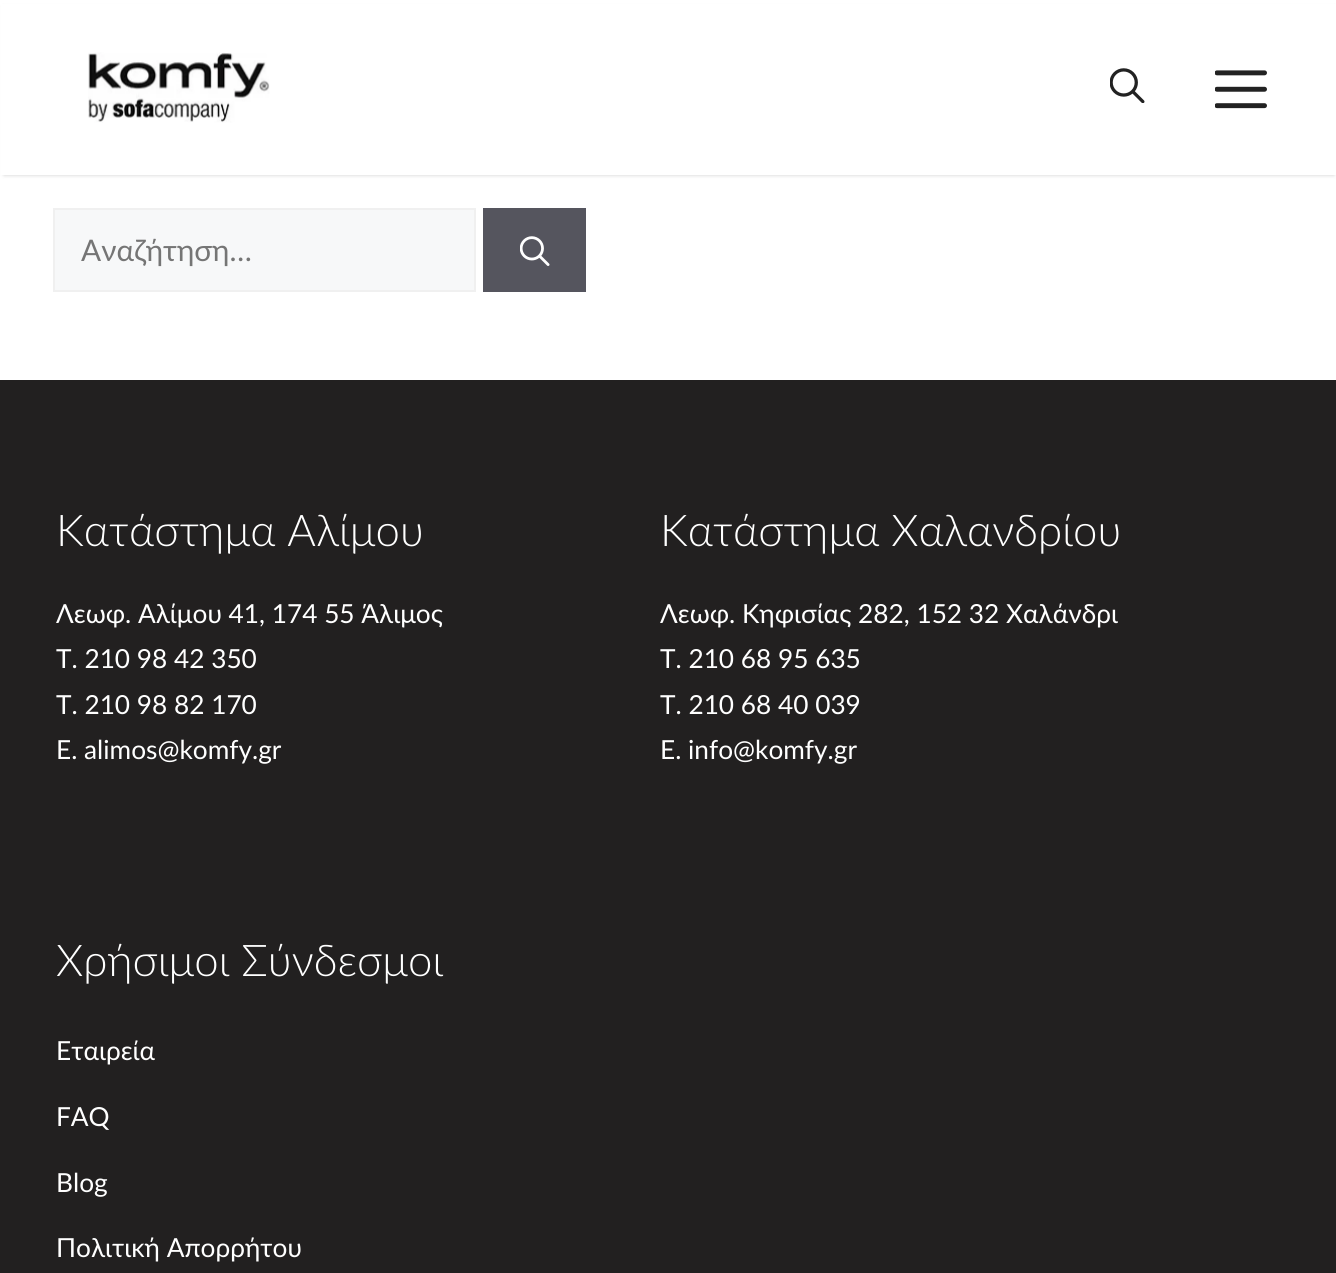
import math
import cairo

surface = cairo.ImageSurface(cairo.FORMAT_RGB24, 1336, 1273)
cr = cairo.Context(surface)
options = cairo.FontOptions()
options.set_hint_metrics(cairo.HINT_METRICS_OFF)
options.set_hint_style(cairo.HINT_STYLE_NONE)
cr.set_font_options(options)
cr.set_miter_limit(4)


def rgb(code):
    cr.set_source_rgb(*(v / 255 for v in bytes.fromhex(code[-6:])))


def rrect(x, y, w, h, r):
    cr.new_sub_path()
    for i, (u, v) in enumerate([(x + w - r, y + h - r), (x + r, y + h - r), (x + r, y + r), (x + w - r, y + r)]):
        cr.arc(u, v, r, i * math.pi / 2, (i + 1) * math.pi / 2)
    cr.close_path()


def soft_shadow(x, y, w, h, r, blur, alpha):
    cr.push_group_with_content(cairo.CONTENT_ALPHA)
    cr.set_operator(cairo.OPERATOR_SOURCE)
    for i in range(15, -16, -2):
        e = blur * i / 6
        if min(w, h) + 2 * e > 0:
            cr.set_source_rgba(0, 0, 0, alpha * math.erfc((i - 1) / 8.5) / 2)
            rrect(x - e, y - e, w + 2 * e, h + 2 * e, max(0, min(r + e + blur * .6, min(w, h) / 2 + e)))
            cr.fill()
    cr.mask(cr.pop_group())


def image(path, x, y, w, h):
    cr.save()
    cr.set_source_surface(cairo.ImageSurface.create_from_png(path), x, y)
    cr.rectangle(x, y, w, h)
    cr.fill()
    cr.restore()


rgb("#ffffff")
cr.paint()
rgb("#000000")
soft_shadow(4, 7, 1330, 168, 0, 2, 0.2)
rgb("#ffffff")
cr.rectangle(1, 4, 1335, 171)
cr.fill()
image("img/1.png", 88, 52, 182, 71)
image("img/2.png", 1110, 68, 35, 35)
image("img/3.png", 1215, 70, 52, 39)
rgb("#f7f8f9")
cr.rectangle(54, 209, 421, 82)
cr.fill_preserve()
rgb("#f0f0f0")
cr.stroke()
rgb("#55555e")
cr.rectangle(483, 208, 103, 84)
cr.fill()
image("img/4.png", 520, 236, 30, 30)
rgb("#222020")
cr.rectangle(0, 380, 1336, 893)
cr.fill()
cr.select_font_face("Lato")
cr.set_font_size(29.75)
rgb("#757575")
cr.move_to(81, 261)
cr.show_text("Αναζήτηση…")
cr.select_font_face("Lato Light")
cr.set_font_size(43.75)
rgb("#ffffff")
cr.move_to(56, 546)
cr.show_text("Kατάστημα Αλίμου")
cr.select_font_face("Lato")
cr.set_font_size(26.25)
for x, y, s in [
    (56, 623, "Λεωφ. Αλίμου 41, 174 55 Άλιμος"),
    (56, 668, "Τ. 210 98 42 350"),
    (56, 714, "Τ. 210 98 82 170"),
    (56, 759, "Ε. alimos@komfy.gr"),
]:
    cr.move_to(x, y)
    cr.show_text(s)
cr.select_font_face("Lato Light")
cr.set_font_size(43.75)
cr.move_to(660, 546)
cr.show_text("Κατάστημα Χαλανδρίου")
cr.select_font_face("Lato")
cr.set_font_size(26.25)
for x, y, s in [
    (660, 623, "Λεωφ. Κηφισίας 282, 152 32 Χαλάνδρι"),
    (660, 668, "Τ. 210 68 95 635"),
    (660, 714, "Τ. 210 68 40 039"),
    (660, 759, "Ε. info@komfy.gr"),
]:
    cr.move_to(x, y)
    cr.show_text(s)
cr.select_font_face("Lato Light")
cr.set_font_size(43.75)
cr.move_to(56, 976)
cr.show_text("Χρήσιμοι Σύνδεσμοι")
cr.select_font_face("Lato")
cr.set_font_size(26.25)
for x, y, s in [
    (56, 1060, "Εταιρεία"),
    (56, 1126, "FAQ"),
    (56, 1192, "Blog"),
    (56, 1257, "Πολιτική Απορρήτου"),
]:
    cr.move_to(x, y)
    cr.show_text(s)
surface.write_to_png("page.png")
